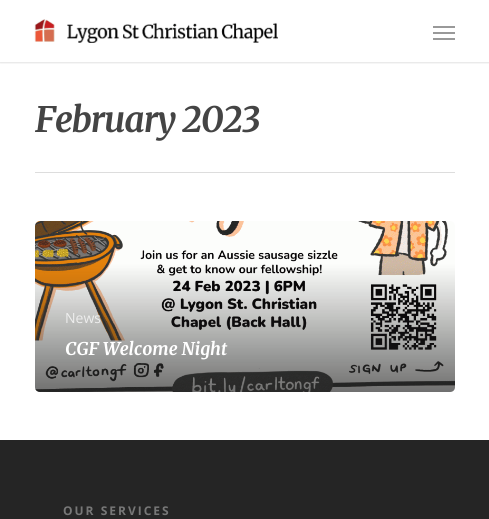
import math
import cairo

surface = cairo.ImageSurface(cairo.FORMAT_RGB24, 489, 519)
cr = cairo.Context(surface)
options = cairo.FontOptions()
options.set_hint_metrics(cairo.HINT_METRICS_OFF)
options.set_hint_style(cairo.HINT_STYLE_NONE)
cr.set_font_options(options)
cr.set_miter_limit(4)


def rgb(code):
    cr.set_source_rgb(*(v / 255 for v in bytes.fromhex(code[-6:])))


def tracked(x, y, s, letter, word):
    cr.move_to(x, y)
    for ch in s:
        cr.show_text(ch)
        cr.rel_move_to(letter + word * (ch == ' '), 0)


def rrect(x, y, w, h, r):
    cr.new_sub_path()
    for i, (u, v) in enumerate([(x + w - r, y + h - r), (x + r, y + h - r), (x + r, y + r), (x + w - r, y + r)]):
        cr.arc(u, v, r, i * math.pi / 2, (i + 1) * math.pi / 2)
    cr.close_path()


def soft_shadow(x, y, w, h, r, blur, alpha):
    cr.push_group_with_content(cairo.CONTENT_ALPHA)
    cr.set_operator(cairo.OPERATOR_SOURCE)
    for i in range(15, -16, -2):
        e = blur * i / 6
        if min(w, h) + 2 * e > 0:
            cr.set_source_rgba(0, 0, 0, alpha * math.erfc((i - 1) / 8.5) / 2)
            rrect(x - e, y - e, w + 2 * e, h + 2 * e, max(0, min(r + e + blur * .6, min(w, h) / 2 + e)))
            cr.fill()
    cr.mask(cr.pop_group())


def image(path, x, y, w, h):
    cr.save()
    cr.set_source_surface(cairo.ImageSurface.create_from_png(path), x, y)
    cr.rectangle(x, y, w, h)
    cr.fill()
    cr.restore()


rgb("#252525")
cr.paint()
rgb("#ffffff")
cr.rectangle(0, 0, 489, 62)
cr.fill()
cr.rectangle(0, 62, 489, 378)
cr.fill()
cr.save()
cr.rectangle(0, 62, 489, 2)
cr.clip()
rgb("#000000")
soft_shadow(0, 0, 489, 62, 0, 1.5, 0.22)
cr.restore()
image("img/1.png", 34, 19, 244, 24)
for x, y, w, h, color in [
    (433, 26, 22, 2, "#999999"),
    (433, 38, 22, 2, "#999999"),
    (433, 32, 22, 2, "#999999"),
    (35, 172, 420, 1, "#dddddd"),
]:
    rgb(color)
    cr.rectangle(x, y, w, h)
    cr.fill()
image("img/2.png", 35, 221, 420, 171)
gradient = cairo.LinearGradient(246, 264, 246, 393)
gradient.add_color_stop_rgba(0, 0.137, 0.137, 0.137, 0)
gradient.add_color_stop_rgba(1, 0.137, 0.137, 0.137, 0.65)
cr.set_source(gradient)
cr.new_path()
cr.move_to(35, 264)
cr.line_to(455, 264)
cr.line_to(455, 387)
cr.curve_to(455, 390, 453, 392, 450, 392)
cr.line_to(40, 392)
cr.curve_to(37, 392, 35, 390, 35, 387)
cr.close_path()
cr.fill()
cr.select_font_face("Merriweather Light", cairo.FONT_SLANT_ITALIC)
cr.set_font_size(35)
rgb("#444444")
tracked(35, 132, "February 2023", -1, 0)
cr.select_font_face("Open Sans")
cr.set_font_size(14)
rgb("#ededed")
cr.move_to(65, 323)
cr.show_text("News")
cr.select_font_face("Merriweather Light", cairo.FONT_SLANT_ITALIC)
cr.set_font_size(17.5)
rgb("#ffffff")
cr.move_to(65, 355)
cr.show_text("CGF Welcome Night")
cr.select_font_face("Open Sans", cairo.FONT_SLANT_NORMAL, cairo.FONT_WEIGHT_BOLD)
cr.set_font_size(12)
rgb("#777777")
tracked(63, 515, "OUR SERVICES", 2, 0)
surface.write_to_png("page.png")
